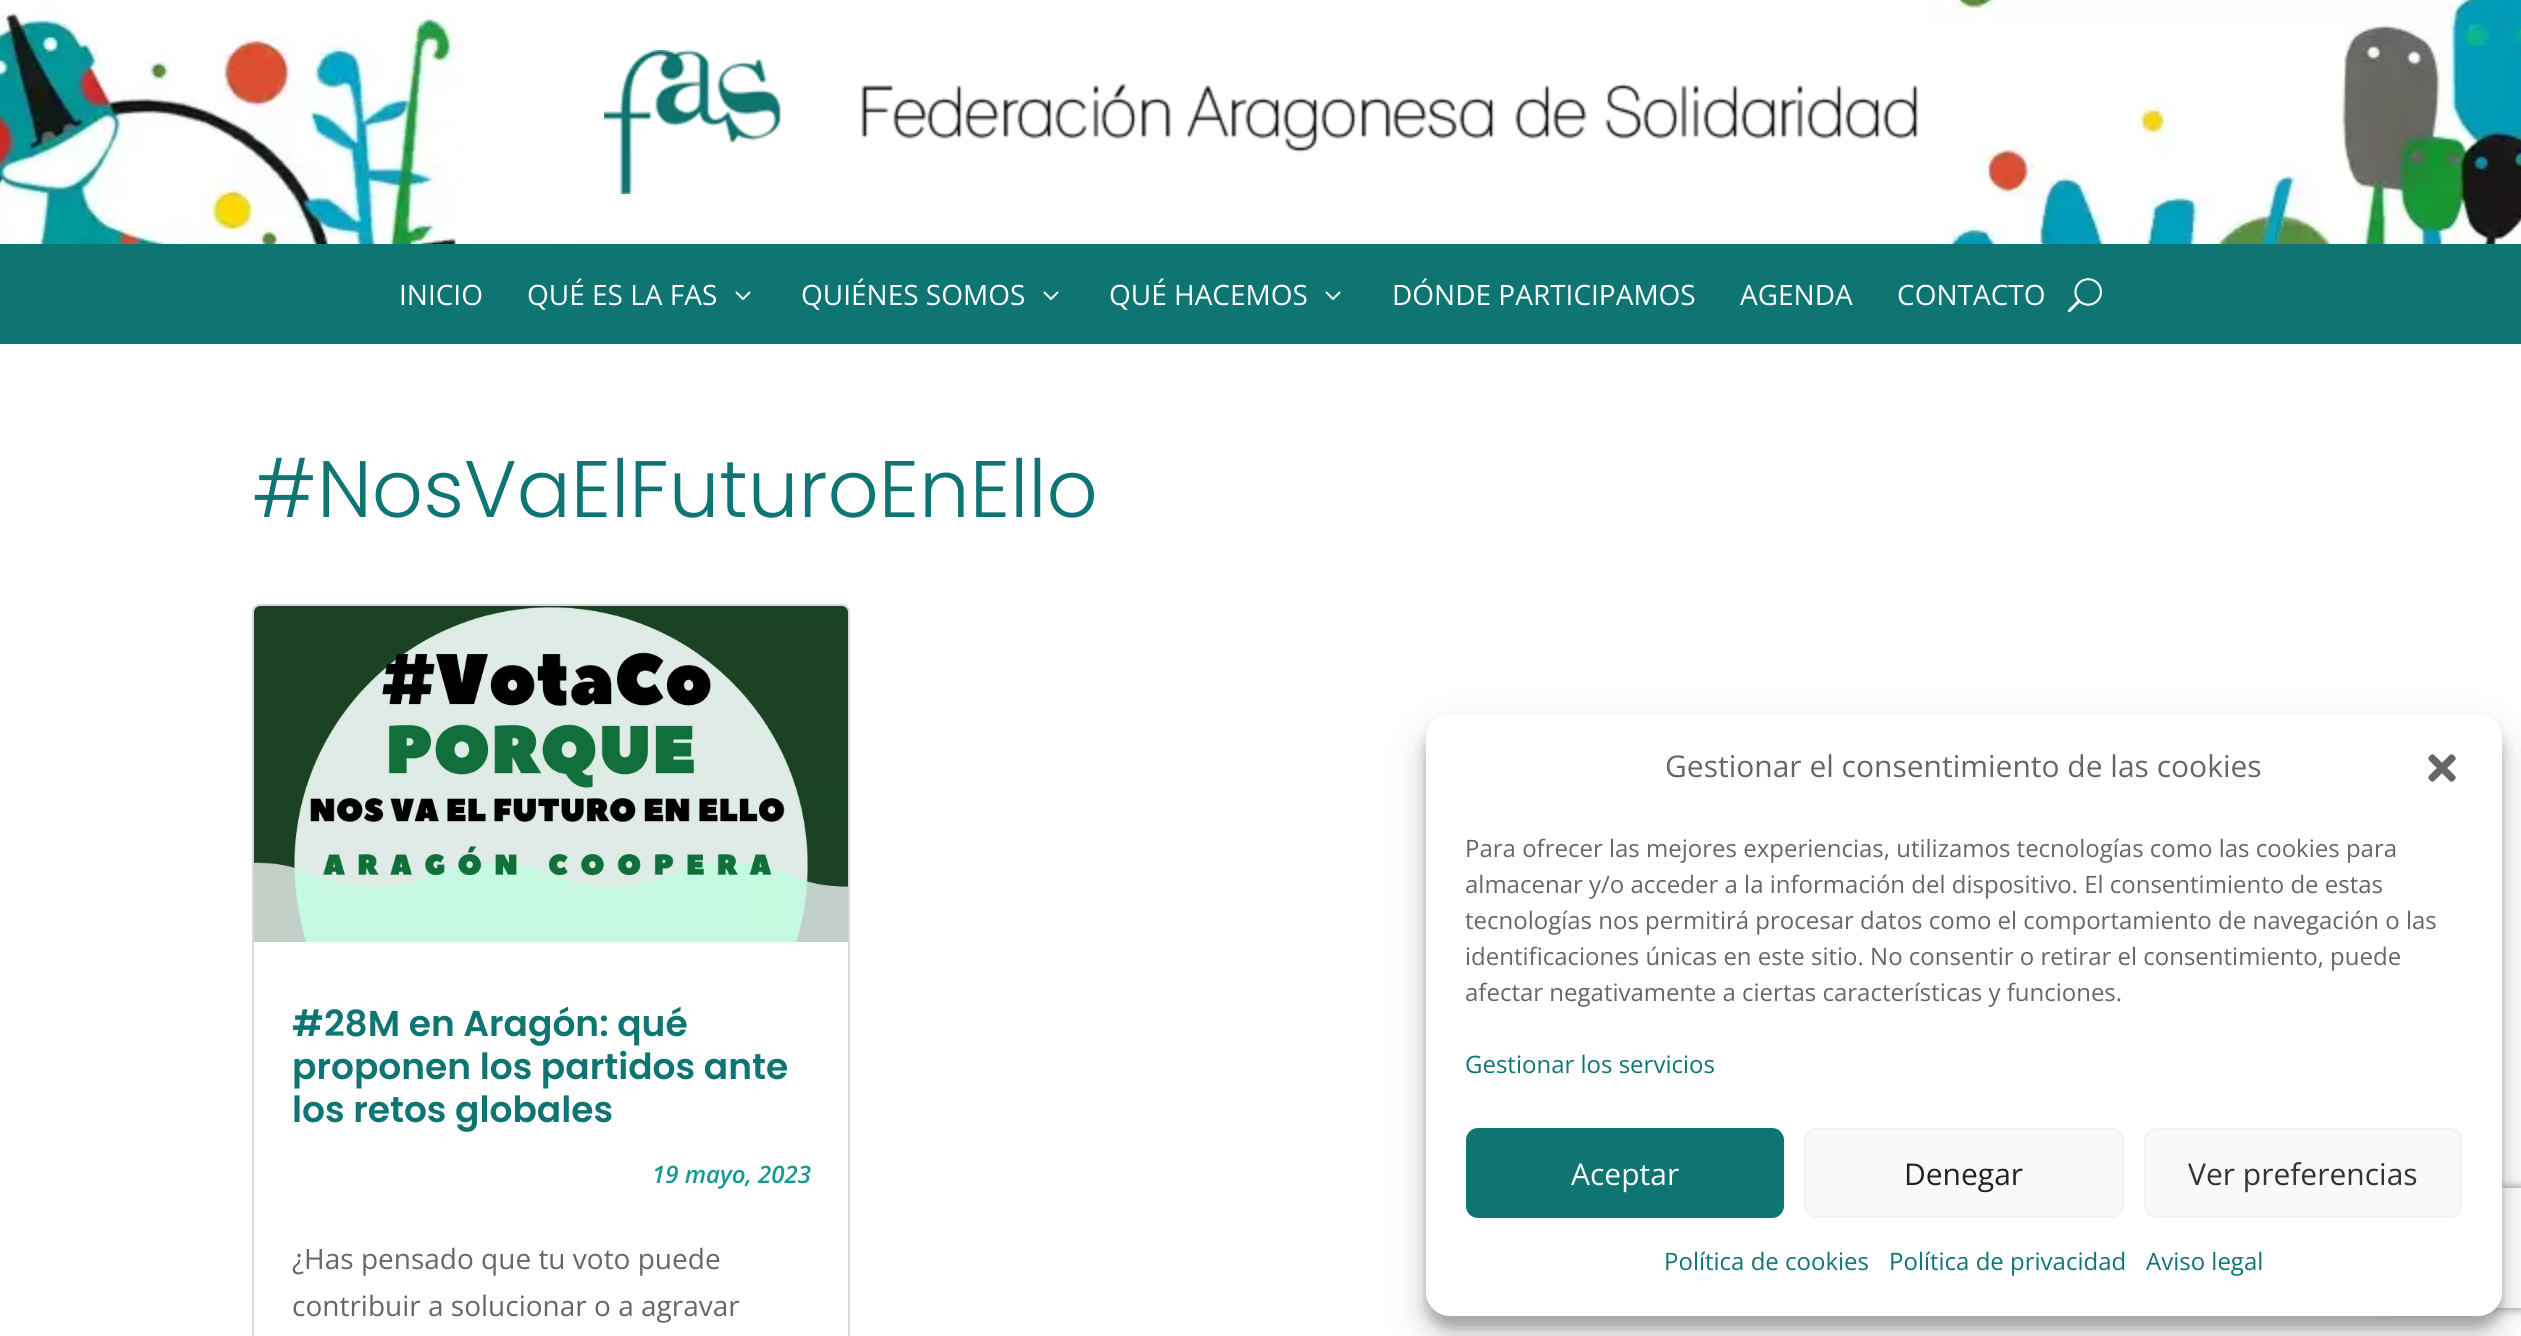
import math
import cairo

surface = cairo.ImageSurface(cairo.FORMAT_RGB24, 2521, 1336)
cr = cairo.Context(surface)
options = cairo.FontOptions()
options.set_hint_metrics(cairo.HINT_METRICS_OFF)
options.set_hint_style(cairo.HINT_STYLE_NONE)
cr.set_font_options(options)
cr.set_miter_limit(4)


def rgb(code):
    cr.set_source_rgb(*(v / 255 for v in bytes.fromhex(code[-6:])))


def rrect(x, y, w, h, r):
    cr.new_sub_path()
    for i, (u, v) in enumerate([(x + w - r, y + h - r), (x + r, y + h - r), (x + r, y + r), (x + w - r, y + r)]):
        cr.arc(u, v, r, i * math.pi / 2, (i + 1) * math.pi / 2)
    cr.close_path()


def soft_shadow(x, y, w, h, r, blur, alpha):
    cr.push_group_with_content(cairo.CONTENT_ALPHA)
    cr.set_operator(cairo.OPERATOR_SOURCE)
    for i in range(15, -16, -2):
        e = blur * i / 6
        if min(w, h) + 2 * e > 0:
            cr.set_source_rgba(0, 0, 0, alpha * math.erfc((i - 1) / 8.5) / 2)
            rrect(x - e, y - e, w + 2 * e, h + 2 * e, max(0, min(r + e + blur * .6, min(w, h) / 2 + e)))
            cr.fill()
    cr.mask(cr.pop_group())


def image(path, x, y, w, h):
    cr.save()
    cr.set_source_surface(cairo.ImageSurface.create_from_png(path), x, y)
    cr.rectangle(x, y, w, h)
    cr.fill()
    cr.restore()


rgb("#ffffff")
cr.paint()
image("img/1.png", 0, 0, 2521, 244)
image("img/2.png", 604, 50, 1314, 144)
rgb("#0e7572")
cr.rectangle(0, 244, 2521, 100)
cr.fill()
image("img/3.png", 735, 291, 16, 9)
image("img/3.png", 1043, 291, 16, 9)
image("img/3.png", 1325, 291, 16, 9)
image("img/4.png", 2067, 278, 35, 35)
rrect(253, 605, 596, 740, 7)
rgb("#d8d8d8")
cr.stroke()
image("img/5.png", 254, 606, 594, 336)
rgb("#000000")
soft_shadow(1426, 726, 1076, 602, 24, 6, 0.23)
soft_shadow(1426, 734, 1076, 602, 24, 20, 0.19)
cr.save()
cr.set_fill_rule(cairo.FILL_RULE_EVEN_ODD)
cr.new_path()
cr.move_to(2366, 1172)
cr.line_to(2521, 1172)
cr.line_to(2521, 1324)
cr.line_to(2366, 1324)
cr.close_path()
cr.move_to(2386, 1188)
cr.line_to(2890, 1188)
cr.curve_to(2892, 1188, 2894, 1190, 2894, 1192)
cr.line_to(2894, 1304)
cr.curve_to(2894, 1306, 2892, 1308, 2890, 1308)
cr.line_to(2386, 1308)
cr.curve_to(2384, 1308, 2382, 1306, 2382, 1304)
cr.line_to(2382, 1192)
cr.curve_to(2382, 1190, 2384, 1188, 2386, 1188)
cr.close_path()
cr.clip()
rgb("#808080")
soft_shadow(2382, 1188, 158, 120, 4, 5, 1)
cr.restore()
rgb("#ffffff")
rrect(1426, 714, 1076, 602, 24)
cr.fill()
image("img/6.png", 2428, 754, 28, 28)
rgb("#0e7572")
rrect(1467, 1129, 316, 88, 11)
cr.fill_preserve()
cr.stroke()
rgb("#f9f9f9")
rrect(1805, 1129, 318, 88, 11)
cr.fill_preserve()
rgb("#f2f2f2")
cr.stroke()
rgb("#f9f9f9")
rrect(2145, 1129, 316, 88, 11)
cr.fill_preserve()
rgb("#f2f2f2")
cr.stroke()
cr.select_font_face("Open Sans")
cr.set_font_size(28)
rgb("#ffffff")
for x, y, s in [
    (399, 305, "INICIO"),
    (527, 305, "QUÉ ES LA FAS"),
    (801, 305, "QUIÉNES SOMOS"),
    (1109, 305, "QUÉ HACEMOS"),
    (1392, 305, "DÓNDE PARTICIPAMOS"),
    (1740, 305, "AGENDA"),
    (1897, 305, "CONTACTO"),
]:
    cr.move_to(x, y)
    cr.show_text(s)
cr.select_font_face("Poppins Light")
cr.set_font_size(80)
rgb("#0e7572")
cr.move_to(252, 517)
cr.show_text("#NosVaElFuturoEnEllo")
cr.select_font_face("Poppins SemiBold")
cr.set_font_size(36)
for x, y, s in [
    (292, 1036, "#28M en Aragón: qué"),
    (292, 1079, "proponen los partidos ante"),
    (292, 1122, "los retos globales"),
]:
    cr.move_to(x, y)
    cr.show_text(s)
cr.select_font_face("Open Sans SemiBold", cairo.FONT_SLANT_ITALIC)
cr.set_font_size(24)
rgb("#149a93")
cr.move_to(652, 1183)
cr.show_text("19 mayo, 2023")
cr.select_font_face("Open Sans")
cr.set_font_size(28)
rgb("#666666")
cr.move_to(292, 1269)
cr.show_text("¿Has pensado que tu voto puede")
cr.move_to(292, 1316)
cr.show_text("contribuir a solucionar o a agravar")
cr.set_font_size(30)
cr.move_to(1665, 777)
cr.show_text("Gestionar el consentimiento de las cookies")
cr.set_font_size(24)
for x, y, s in [
    (1465, 857, "Para ofrecer las mejores experiencias, utilizamos tecnologías como las cookies para"),
    (1465, 893, "almacenar y/o acceder a la información del dispositivo. El consentimiento de estas"),
    (1465, 929, "tecnologías nos permitirá procesar datos como el comportamiento de navegación o las"),
    (1465, 965, "identificaciones únicas en este sitio. No consentir o retirar el consentimiento, puede"),
    (1465, 1001, "afectar negativamente a ciertas características y funciones."),
]:
    cr.move_to(x, y)
    cr.show_text(s)
rgb("#0e7572")
cr.move_to(1465, 1073)
cr.show_text("Gestionar los servicios")
cr.set_font_size(30)
rgb("#ffffff")
cr.move_to(1571, 1185)
cr.show_text("Aceptar")
rgb("#222222")
cr.move_to(1904, 1185)
cr.show_text("Denegar")
rgb("#333333")
cr.move_to(2188, 1185)
cr.show_text("Ver preferencias")
cr.set_font_size(24)
rgb("#0e7572")
for x, y, s in [
    (1664, 1270, "Política de cookies"),
    (1889, 1270, "Política de privacidad"),
    (2146, 1270, "Aviso legal"),
]:
    cr.move_to(x, y)
    cr.show_text(s)
surface.write_to_png("page.png")
